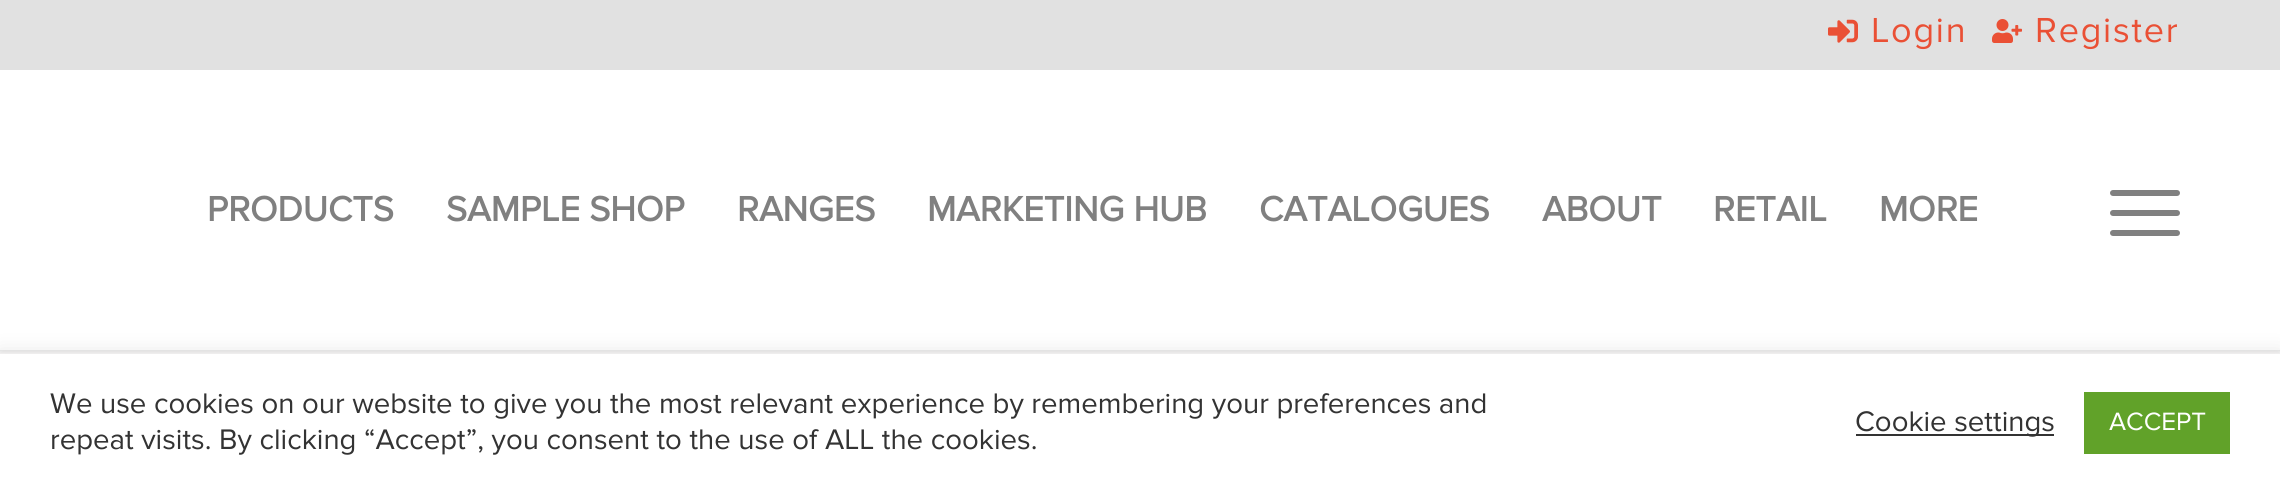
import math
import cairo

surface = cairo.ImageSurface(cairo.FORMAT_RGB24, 2280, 492)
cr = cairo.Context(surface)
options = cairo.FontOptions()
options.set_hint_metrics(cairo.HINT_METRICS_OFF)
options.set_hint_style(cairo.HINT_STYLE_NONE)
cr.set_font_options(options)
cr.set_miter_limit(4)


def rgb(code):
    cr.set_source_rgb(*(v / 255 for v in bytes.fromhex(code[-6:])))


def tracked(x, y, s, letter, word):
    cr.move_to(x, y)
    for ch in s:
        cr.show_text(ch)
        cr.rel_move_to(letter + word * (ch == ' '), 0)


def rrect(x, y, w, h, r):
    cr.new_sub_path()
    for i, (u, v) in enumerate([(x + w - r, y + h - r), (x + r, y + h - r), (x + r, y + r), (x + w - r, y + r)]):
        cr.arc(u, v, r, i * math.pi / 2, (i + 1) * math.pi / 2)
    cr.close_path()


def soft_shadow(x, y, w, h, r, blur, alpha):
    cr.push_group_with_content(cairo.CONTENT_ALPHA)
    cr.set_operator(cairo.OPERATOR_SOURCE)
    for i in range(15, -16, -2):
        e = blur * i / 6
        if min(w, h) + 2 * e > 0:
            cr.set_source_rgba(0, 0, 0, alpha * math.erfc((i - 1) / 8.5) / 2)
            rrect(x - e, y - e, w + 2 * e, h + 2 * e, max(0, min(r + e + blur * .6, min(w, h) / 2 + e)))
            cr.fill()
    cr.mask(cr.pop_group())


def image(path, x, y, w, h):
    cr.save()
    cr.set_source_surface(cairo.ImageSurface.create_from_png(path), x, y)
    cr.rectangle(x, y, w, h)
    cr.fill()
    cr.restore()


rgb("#ffffff")
cr.paint()
cr.save()
cr.rectangle(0, 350, 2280, 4)
cr.clip()
rgb("#000000")
soft_shadow(-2, -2, 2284, 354, 0, 2, 0.1)
cr.restore()
rgb("#e1e1e1")
cr.rectangle(0, 0, 2280, 70)
cr.fill()
image("img/1.png", 1828, 19, 30, 24)
image("img/2.png", 1992, 19, 30, 24)
rgb("#808080")
rrect(2110, 210, 70, 6, 3)
cr.fill()
rrect(2110, 190, 70, 6, 3)
cr.fill()
rrect(2110, 230, 70, 6, 3)
cr.fill()
rgb("#acabab")
soft_shadow(0, 352, 2280, 138, 0, 10, 0.3)
for x, y, w, h, color in [
    (0, 354, 2280, 138, "#ffffff"),
    (1856, 434, 198, 2, "#333333"),
    (2084, 392, 146, 62, "#61a229"),
]:
    rgb(color)
    cr.rectangle(x, y, w, h)
    cr.fill()
cr.select_font_face("Proxima Nova")
cr.set_font_size(36)
rgb("#ea5035")
tracked(1871, 42, "Login", 1.75, 0)
tracked(2035, 42, "Register", 1.75, 0)
cr.select_font_face("Proxima Nova", cairo.FONT_SLANT_NORMAL, cairo.FONT_WEIGHT_BOLD)
rgb("#808080")
for x, y, s in [
    (207, 221, "PRODUCTS"),
    (446, 221, "SAMPLE SHOP"),
    (737, 221, "RANGES"),
    (927, 221, "MARKETING HUB"),
    (1259, 221, "CATALOGUES"),
    (1542, 221, "ABOUT"),
    (1713, 221, "RETAIL"),
    (1879, 221, "MORE"),
]:
    cr.move_to(x, y)
    cr.show_text(s)
cr.select_font_face("Proxima Nova")
cr.set_font_size(29.35)
rgb("#333333")
for x, y, s in [
    (50, 413, "We use cookies on our website to give you the most relevant experience by remembering your preferences and"),
    (50, 449, "repeat visits. By clicking “Accept”, you consent to the use of ALL the cookies."),
    (1855, 431, "Cookie settings"),
]:
    cr.move_to(x, y)
    cr.show_text(s)
cr.set_font_size(26)
rgb("#ffffff")
cr.move_to(2109, 430)
cr.show_text("ACCEPT")
surface.write_to_png("page.png")
